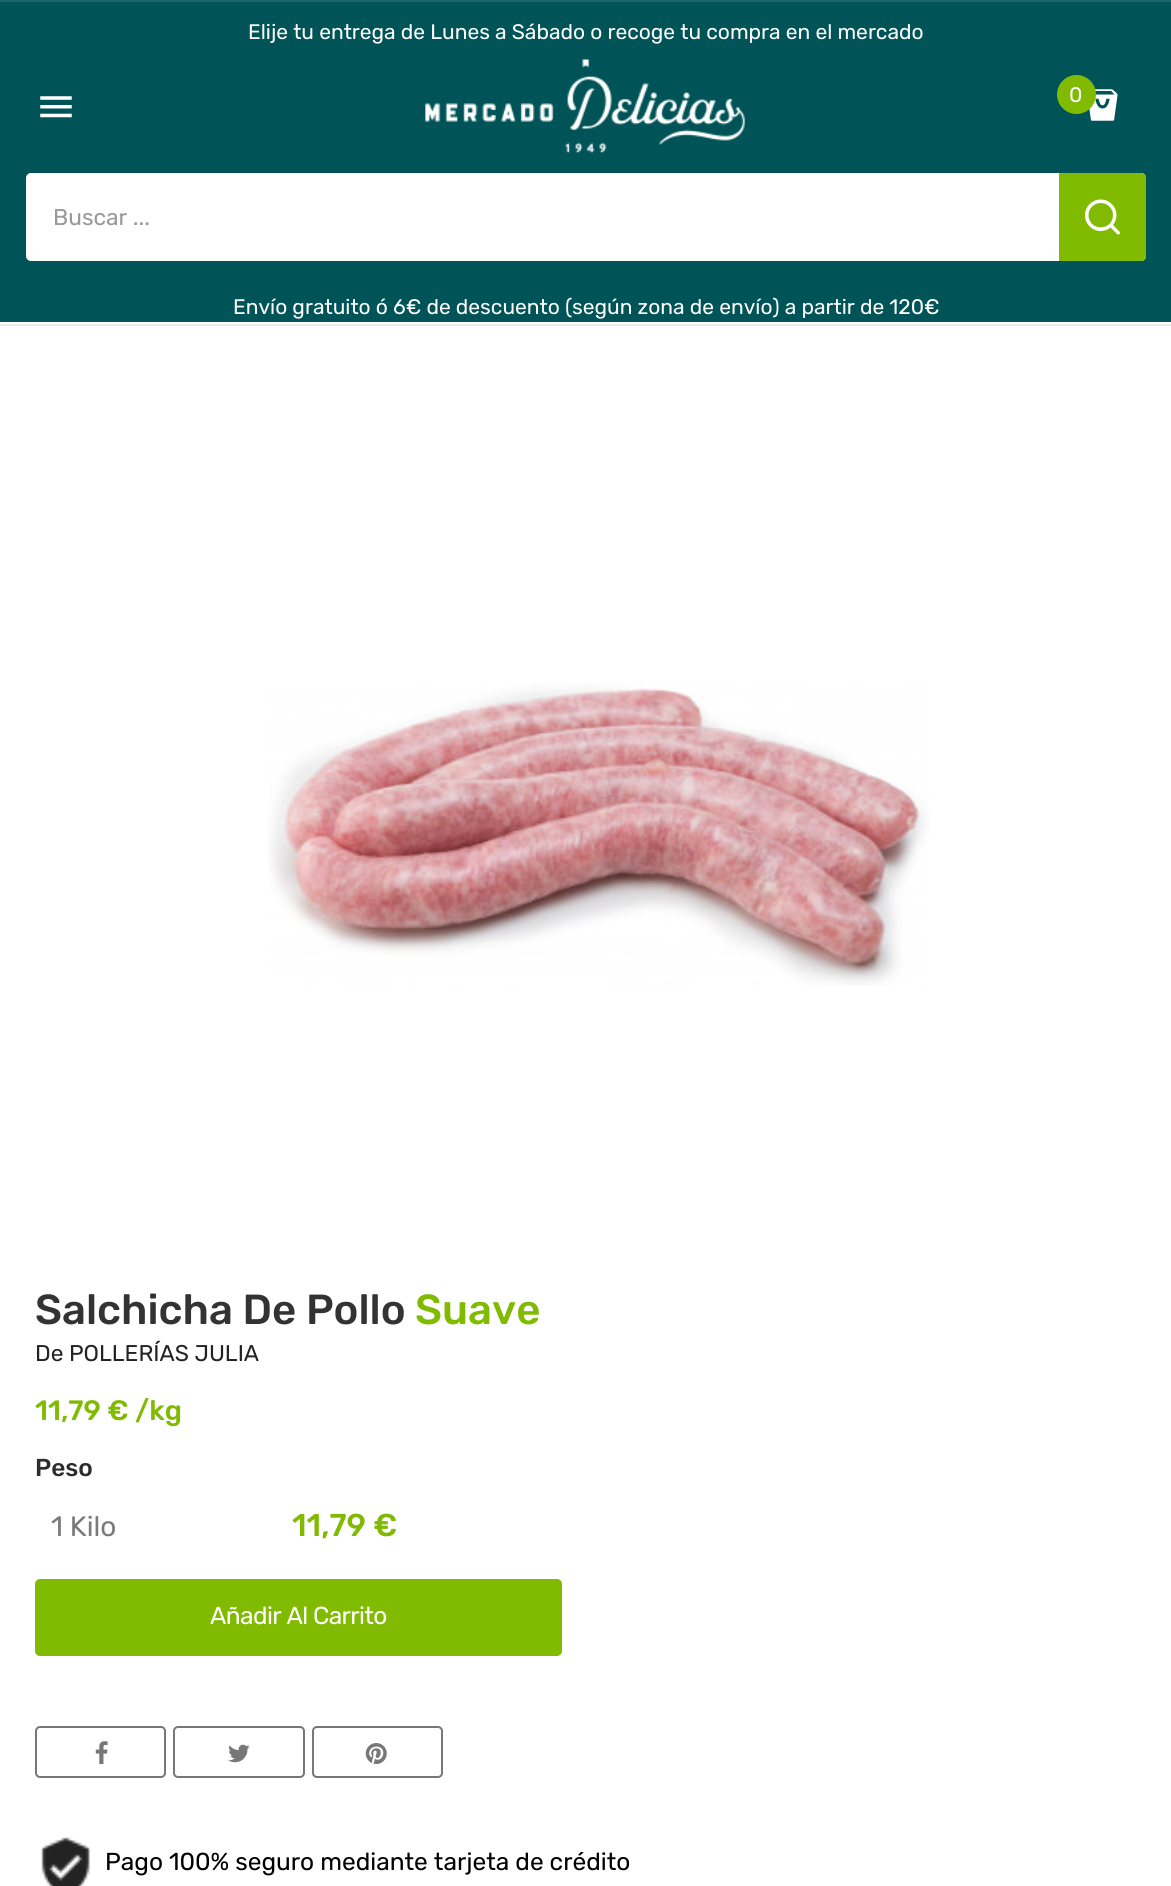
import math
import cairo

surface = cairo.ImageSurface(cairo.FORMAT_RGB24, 1171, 1886)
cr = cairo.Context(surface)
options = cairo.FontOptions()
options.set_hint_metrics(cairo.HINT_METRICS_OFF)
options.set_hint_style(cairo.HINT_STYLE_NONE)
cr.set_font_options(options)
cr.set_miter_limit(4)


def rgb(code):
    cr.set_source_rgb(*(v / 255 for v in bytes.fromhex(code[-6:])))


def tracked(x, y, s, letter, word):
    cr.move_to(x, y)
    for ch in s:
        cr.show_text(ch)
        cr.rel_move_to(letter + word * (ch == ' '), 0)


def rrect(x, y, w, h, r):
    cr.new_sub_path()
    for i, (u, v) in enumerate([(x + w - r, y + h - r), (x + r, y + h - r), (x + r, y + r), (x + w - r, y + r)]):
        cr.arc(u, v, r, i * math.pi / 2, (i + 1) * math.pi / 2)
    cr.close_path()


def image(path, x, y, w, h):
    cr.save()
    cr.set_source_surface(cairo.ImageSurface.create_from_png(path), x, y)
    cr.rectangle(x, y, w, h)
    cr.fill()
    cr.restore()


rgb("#ffffff")
cr.paint()
rgb("#005457")
cr.rectangle(0, 2, 1171, 320)
cr.fill()
rgb("#1a6568")
cr.rectangle(0, 0, 1171, 2)
cr.fill()
image("img/1.png", 40, 96, 32, 22)
image("img/2.png", 425, 59, 320, 94)
image("img/3.png", 1089, 89, 29, 32)
rgb("#80bb01")
cr.arc(1076.5, 94.5, 19.5, 0, 2 * math.pi)
cr.fill()
rgb("#ffffff")
rrect(26, 173, 1120, 88, 5)
cr.fill()
rgb("#80bb01")
cr.new_path()
cr.move_to(1059, 173)
cr.line_to(1141, 173)
cr.curve_to(1144, 173, 1146, 175, 1146, 178)
cr.line_to(1146, 256)
cr.curve_to(1146, 259, 1144, 261, 1141, 261)
cr.line_to(1059, 261)
cr.close_path()
cr.fill()
image("img/4.png", 1085, 199, 35, 36)
rgb("#ebebeb")
cr.rectangle(0, 324, 1171, 2)
cr.fill()
image("img/5.png", 268, 682, 661, 304)
rgb("#80bb01")
rrect(35, 1579, 527, 77, 5)
cr.fill()
rrect(36, 1727, 129, 50, 4)
rgb("#777777")
cr.stroke()
image("img/6.png", 95, 1741, 13, 23)
rrect(174, 1727, 130, 50, 4)
cr.stroke()
image("img/7.png", 228, 1744, 22, 19)
rrect(313, 1727, 129, 50, 4)
cr.stroke()
image("img/8.png", 365, 1743, 22, 21)
image("img/9.png", 41, 1837, 49, 49)
cr.select_font_face("Rubik")
cr.set_font_size(21)
rgb("#ffffff")
cr.move_to(248, 39)
cr.show_text("Elije tu entrega de Lunes a Sábado o recoge tu compra en el mercado")
cr.move_to(1069, 102)
cr.show_text("0")
cr.set_font_size(22.75)
rgb("#999999")
cr.move_to(53, 225)
cr.show_text("Buscar ...")
cr.set_font_size(21)
rgb("#ffffff")
cr.move_to(233, 314)
cr.show_text("Envío gratuito ó 6€ de descuento (según zona de envío) a partir de 120€")
cr.select_font_face("Rubik Medium")
cr.set_font_size(42)
rgb("#333333")
cr.move_to(35, 1324)
cr.show_text("Salchicha De Pollo")
rgb("#80bb01")
cr.move_to(415, 1324)
cr.show_text("Suave")
cr.select_font_face("Rubik")
cr.set_font_size(22.75)
rgb("#232323")
cr.move_to(35, 1361)
cr.show_text("De POLLERÍAS JULIA")
cr.select_font_face("Rubik Medium")
cr.set_font_size(28)
rgb("#80bb01")
cr.move_to(35, 1420)
cr.show_text("11,79 € /kg")
cr.set_font_size(24.5)
rgb("#2c2c2c")
cr.move_to(35, 1476)
cr.show_text("Peso")
cr.select_font_face("Rubik")
cr.set_font_size(28)
rgb("#7a7a7a")
cr.move_to(51, 1536)
cr.show_text("1 Kilo")
cr.select_font_face("Rubik Medium")
cr.set_font_size(31.5)
rgb("#80bb01")
cr.move_to(292, 1536)
cr.show_text("11,79 €")
cr.select_font_face("Rubik")
cr.set_font_size(24.5)
rgb("#ffffff")
tracked(210, 1624, "Añadir Al Carrito", -0.6, 0)
rgb("#000000")
cr.move_to(105, 1870)
cr.show_text("Pago 100% seguro mediante tarjeta de crédito")
surface.write_to_png("page.png")
